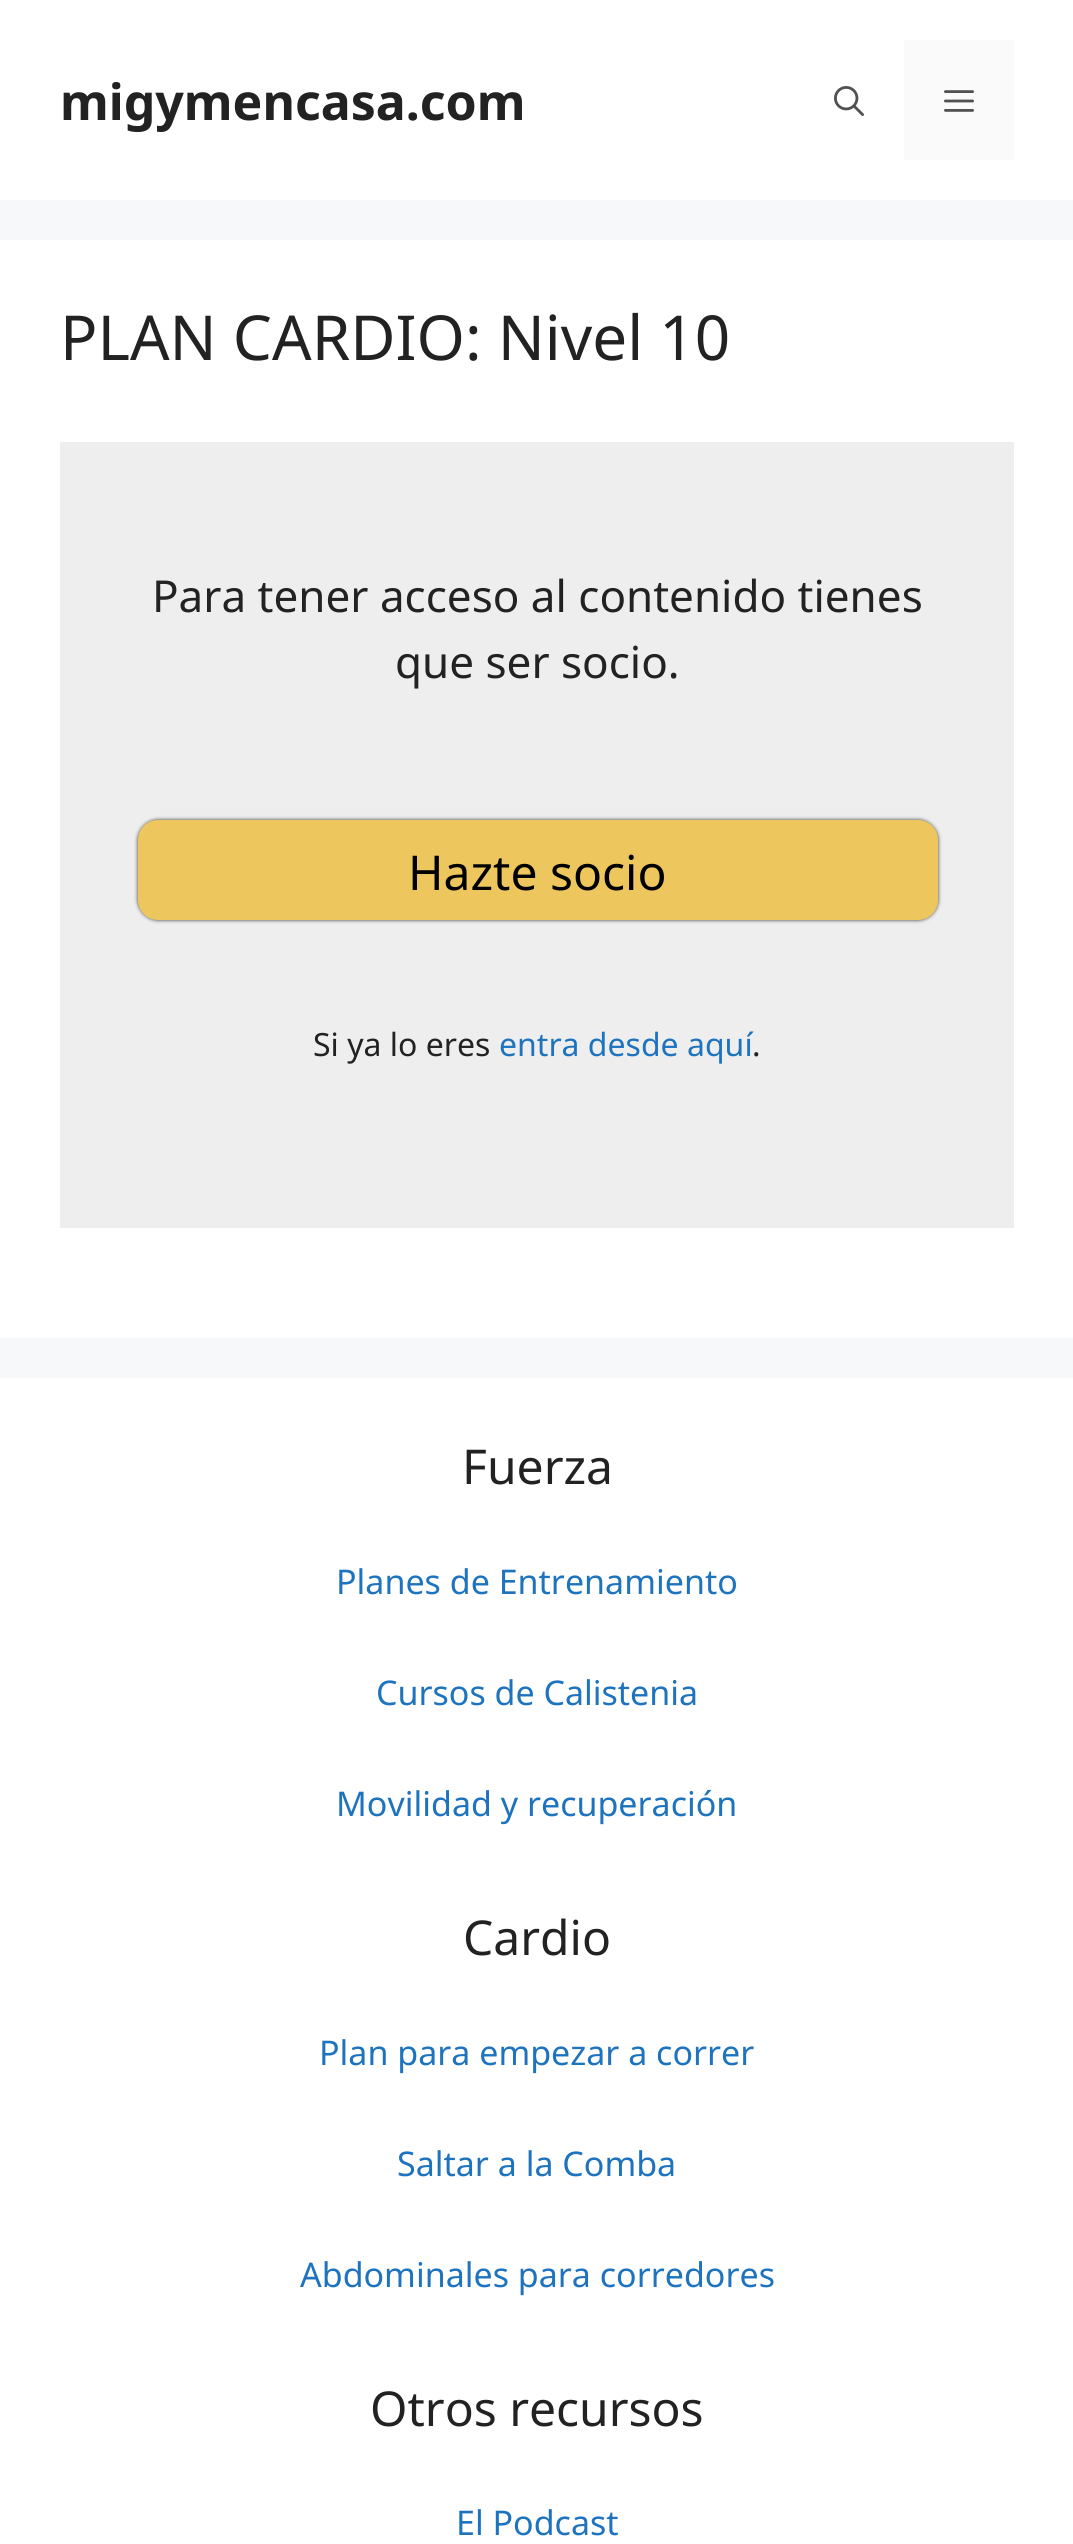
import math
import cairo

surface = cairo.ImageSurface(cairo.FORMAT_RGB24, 1073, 2544)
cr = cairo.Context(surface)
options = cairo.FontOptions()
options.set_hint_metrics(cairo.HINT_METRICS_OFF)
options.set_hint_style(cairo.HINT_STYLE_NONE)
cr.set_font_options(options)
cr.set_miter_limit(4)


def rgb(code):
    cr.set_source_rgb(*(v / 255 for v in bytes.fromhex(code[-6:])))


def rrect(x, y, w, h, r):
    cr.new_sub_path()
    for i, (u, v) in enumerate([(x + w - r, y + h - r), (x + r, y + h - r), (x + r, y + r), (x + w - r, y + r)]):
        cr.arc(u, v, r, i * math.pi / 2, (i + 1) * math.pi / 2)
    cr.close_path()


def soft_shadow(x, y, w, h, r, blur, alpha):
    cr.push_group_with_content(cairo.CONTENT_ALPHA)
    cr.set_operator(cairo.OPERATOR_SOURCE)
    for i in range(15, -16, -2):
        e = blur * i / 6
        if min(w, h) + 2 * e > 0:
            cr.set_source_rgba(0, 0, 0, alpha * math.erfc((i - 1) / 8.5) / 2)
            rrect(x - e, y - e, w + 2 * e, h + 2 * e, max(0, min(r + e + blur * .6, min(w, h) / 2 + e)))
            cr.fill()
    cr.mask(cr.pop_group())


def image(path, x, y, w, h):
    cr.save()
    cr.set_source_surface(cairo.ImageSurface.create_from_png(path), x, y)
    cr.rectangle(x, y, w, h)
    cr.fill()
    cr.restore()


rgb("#f7f8f9")
cr.paint()
rgb("#ffffff")
cr.rectangle(0, 0, 1073, 200)
cr.fill()
image("img/1.png", 834, 86, 30, 30)
rgb("#fafafa")
cr.rectangle(904, 40, 110, 120)
cr.fill()
image("img/2.png", 944, 90, 30, 22)
rgb("#ffffff")
cr.rectangle(0, 240, 1073, 1098)
cr.fill()
rgb("#eeeeee")
cr.rectangle(60, 442, 954, 786)
cr.fill()
rgb("#333333")
soft_shadow(138, 820, 800, 100, 20, 2, 1)
rgb("#edc75e")
rrect(138, 820, 800, 100, 20)
cr.fill()
rgb("#ffffff")
cr.rectangle(0, 1378, 1073, 1166)
cr.fill()
cr.select_font_face("Noto Sans", cairo.FONT_SLANT_NORMAL, cairo.FONT_WEIGHT_BOLD)
cr.set_font_size(50)
rgb("#222222")
cr.move_to(60, 120)
cr.show_text("migymencasa.com")
cr.select_font_face("Noto Sans")
cr.set_font_size(62)
cr.move_to(60, 360)
cr.show_text("PLAN CARDIO: Nivel 10")
cr.set_font_size(44)
cr.move_to(152, 612)
cr.show_text("Para tener acceso al contenido tienes")
cr.move_to(395, 678)
cr.show_text("que ser socio.")
cr.set_font_size(48)
rgb("#000000")
cr.move_to(408, 890)
cr.show_text("Hazte socio")
cr.set_font_size(32)
rgb("#222222")
cr.move_to(313, 1056)
cr.show_text("Si ya lo eres")
rgb("#1e73be")
cr.move_to(499, 1056)
cr.show_text("entra desde aquí")
rgb("#222222")
cr.move_to(752, 1056)
cr.show_text(".")
cr.set_font_size(48)
cr.move_to(462, 1484)
cr.show_text("Fuerza")
cr.set_font_size(34)
rgb("#1e73be")
for x, y, s in [
    (336, 1594, "Planes de Entrenamiento"),
    (376, 1705, "Cursos de Calistenia"),
    (336, 1816, "Movilidad y recuperación"),
]:
    cr.move_to(x, y)
    cr.show_text(s)
cr.set_font_size(48)
rgb("#222222")
cr.move_to(463, 1955)
cr.show_text("Cardio")
cr.set_font_size(34)
rgb("#1e73be")
for x, y, s in [
    (319, 2065, "Plan para empezar a correr"),
    (397, 2176, "Saltar a la Comba"),
    (300, 2287, "Abdominales para corredores"),
]:
    cr.move_to(x, y)
    cr.show_text(s)
cr.set_font_size(48)
rgb("#222222")
cr.move_to(370, 2426)
cr.show_text("Otros recursos")
cr.set_font_size(34)
rgb("#1e73be")
cr.move_to(456, 2535)
cr.show_text("El Podcast")
surface.write_to_png("page.png")
